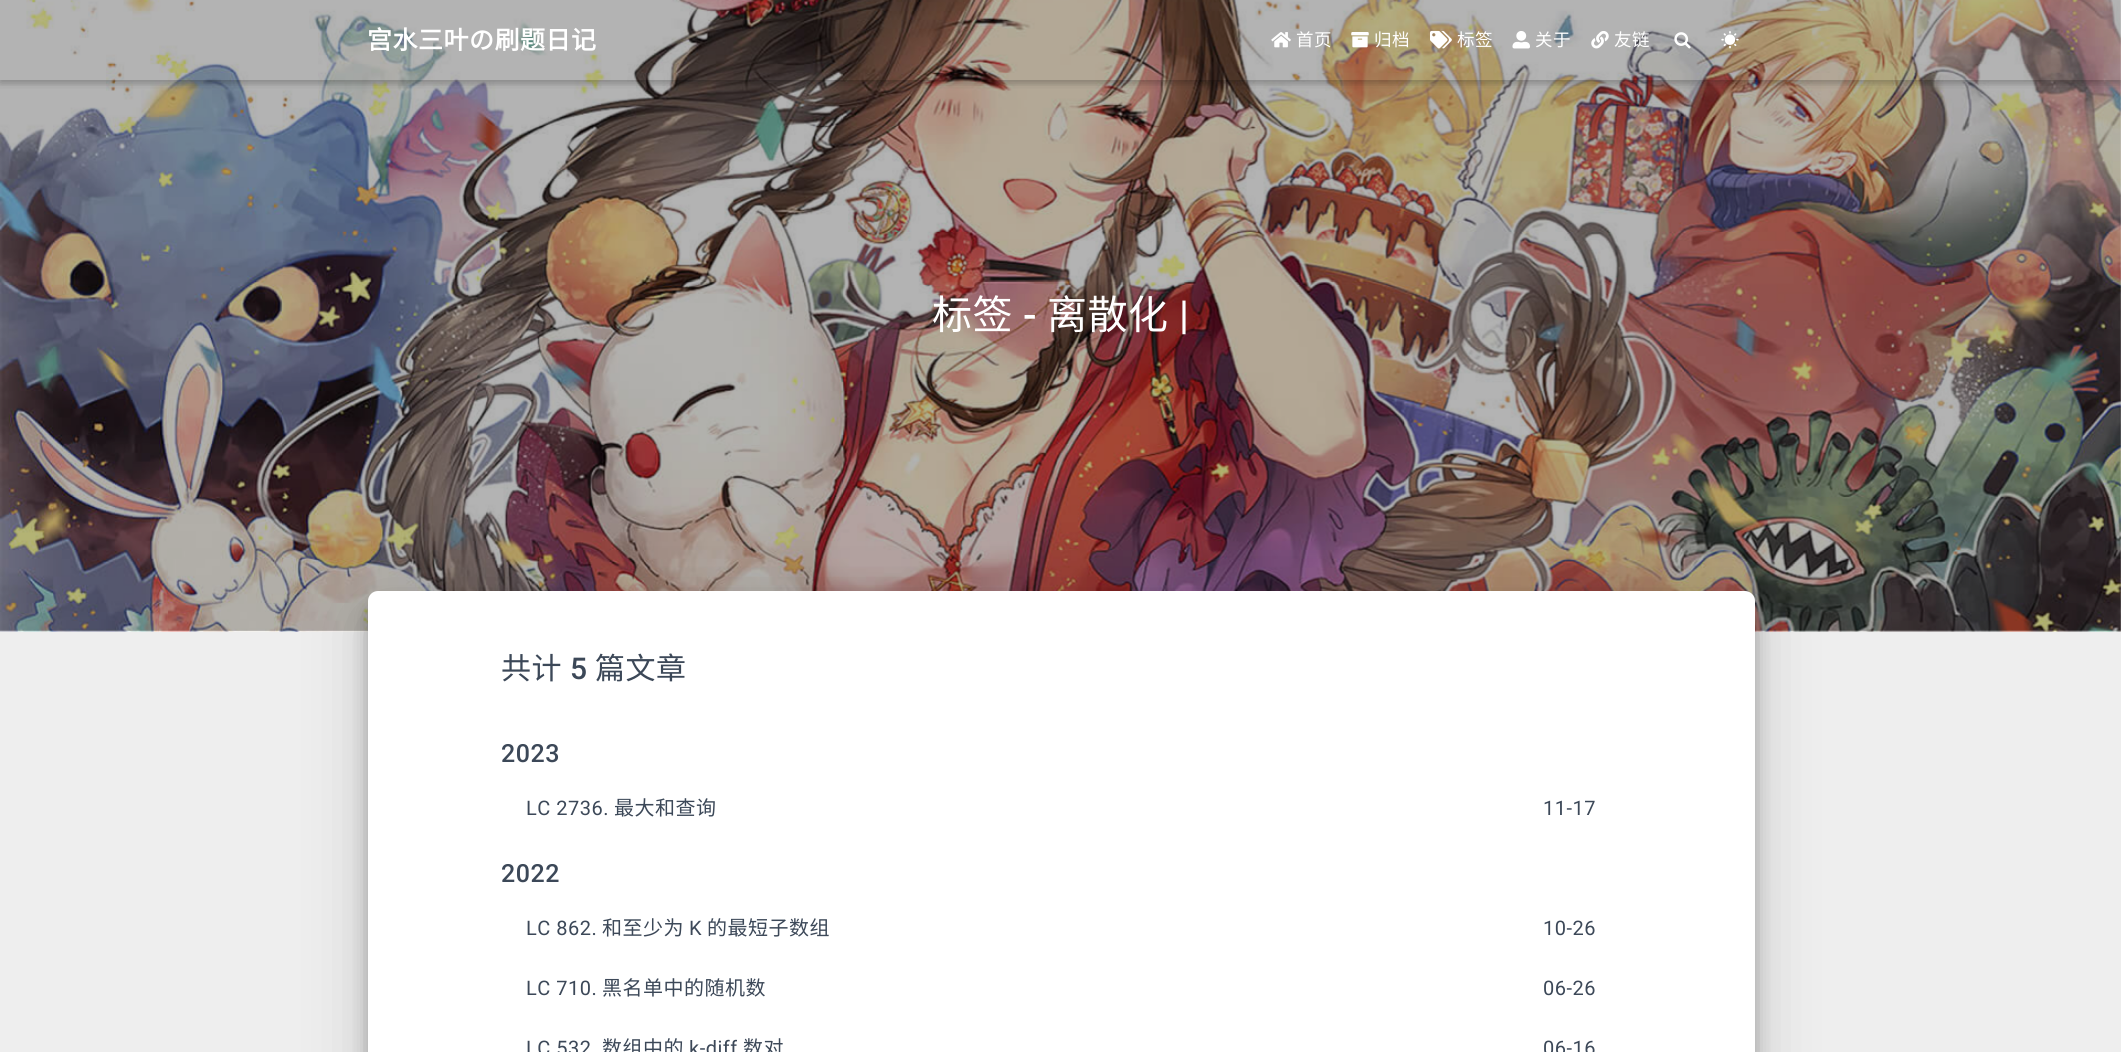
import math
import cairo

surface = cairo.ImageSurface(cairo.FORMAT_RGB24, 2121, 1052)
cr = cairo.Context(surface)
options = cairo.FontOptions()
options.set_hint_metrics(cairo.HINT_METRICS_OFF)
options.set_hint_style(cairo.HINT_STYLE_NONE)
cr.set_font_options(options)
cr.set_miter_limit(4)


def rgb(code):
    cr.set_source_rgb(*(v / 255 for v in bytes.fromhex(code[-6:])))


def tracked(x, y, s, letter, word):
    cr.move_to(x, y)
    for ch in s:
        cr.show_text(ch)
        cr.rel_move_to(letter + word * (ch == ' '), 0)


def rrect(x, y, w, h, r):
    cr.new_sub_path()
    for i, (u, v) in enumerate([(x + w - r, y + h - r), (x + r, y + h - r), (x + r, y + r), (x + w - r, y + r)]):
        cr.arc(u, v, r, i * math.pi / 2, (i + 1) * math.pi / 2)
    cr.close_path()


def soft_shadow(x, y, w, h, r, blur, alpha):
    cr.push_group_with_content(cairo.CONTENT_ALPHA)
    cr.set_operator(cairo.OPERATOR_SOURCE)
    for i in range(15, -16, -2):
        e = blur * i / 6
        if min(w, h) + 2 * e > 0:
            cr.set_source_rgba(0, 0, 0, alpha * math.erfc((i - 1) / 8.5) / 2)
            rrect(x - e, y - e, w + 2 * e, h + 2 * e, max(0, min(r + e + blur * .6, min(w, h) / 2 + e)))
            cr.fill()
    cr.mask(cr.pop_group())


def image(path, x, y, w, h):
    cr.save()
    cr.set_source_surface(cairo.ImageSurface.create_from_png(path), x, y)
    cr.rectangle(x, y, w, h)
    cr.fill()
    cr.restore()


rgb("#eeeeee")
cr.paint()
image("img/8.png", 0, 0, 2121, 632)
cr.save()
cr.rectangle(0, 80, 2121, 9)
cr.clip()
rgb("#000000")
soft_shadow(0, 3, 2121, 80, 0, 6, 0.12)
cr.restore()
cr.save()
cr.rectangle(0, 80, 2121, 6)
cr.clip()
rgb("#000000")
soft_shadow(0, 3, 2121, 80, 0, 3, 0.16)
cr.restore()
image("img/1.png", 1271, 32, 20, 16)
image("img/2.png", 1351, 32, 18, 16)
image("img/3.png", 1430, 30, 22, 19)
image("img/4.png", 1512, 31, 18, 18)
image("img/5.png", 1591, 31, 18, 18)
image("img/6.png", 1674, 32, 17, 17)
image("img/7.png", 1721, 31, 18, 18)
rgb("#000000")
soft_shadow(368, 613, 1387, 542, 10, 31, 0.19)
soft_shadow(368, 606, 1387, 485, 10, 9.5, 0.24)
rgb("#ffffff")
rrect(368, 591, 1387, 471, 10)
cr.fill()
cr.select_font_face("Noto Sans CJK SC", cairo.FONT_SLANT_NORMAL, cairo.FONT_WEIGHT_BOLD)
cr.set_font_size(25)
tracked(367, 49, "宫水三叶の刷题日记", 0.5, 0)
cr.select_font_face("Noto Sans CJK SC")
cr.set_font_size(17.5)
for x, y, s in [
    (1296, 46, "首页"),
    (1374, 46, "归档"),
    (1457, 46, "标签"),
    (1535, 46, "关于"),
    (1614, 46, "友链"),
]:
    tracked(x, y, s, 0.5, 0)
cr.set_font_size(40)
tracked(932, 329, "标签", 0.5, 0)
cr.select_font_face("Roboto Medium")
tracked(1023, 329, "-", 0.5, 0)
cr.select_font_face("Noto Sans CJK SC")
tracked(1047, 329, "离散化", 0.5, 0)
cr.select_font_face("Roboto Medium")
tracked(1179, 329, "|", 0.5, 0)
cr.select_font_face("Noto Sans CJK SC")
cr.set_font_size(30)
rgb("#3c4858")
tracked(501, 679, "共计", 0.5, 0)
cr.select_font_face("Roboto Medium")
tracked(570, 679, "5", 0.5, 0)
cr.select_font_face("Noto Sans CJK SC")
tracked(595, 679, "篇文章", 0.5, 0)
cr.select_font_face("Roboto Medium")
cr.set_font_size(25)
tracked(501, 762, "2023", 0.5, 0)
cr.select_font_face("Roboto")
cr.set_font_size(20)
tracked(526, 815, "LC 2736.", 0.5, 0)
cr.select_font_face("Noto Sans CJK SC")
tracked(614, 815, "最大和查询", 0.5, 0)
cr.select_font_face("Roboto")
tracked(1543, 815, "11-17", 0.5, 0)
cr.select_font_face("Roboto Medium")
cr.set_font_size(25)
tracked(501, 882, "2022", 0.5, 0)
cr.select_font_face("Roboto")
cr.set_font_size(20)
tracked(526, 935, "LC 862.", 0.5, 0)
cr.select_font_face("Noto Sans CJK SC")
tracked(602, 935, "和至少为", 0.5, 0)
cr.select_font_face("Roboto")
tracked(689, 935, "K", 0.5, 0)
cr.select_font_face("Noto Sans CJK SC")
tracked(707, 935, "的最短子数组", 0.5, 0)
cr.select_font_face("Roboto")
tracked(1543, 935, "10-26", 0.5, 0)
tracked(526, 995, "LC 710.", 0.5, 0)
cr.select_font_face("Noto Sans CJK SC")
tracked(602, 995, "黑名单中的随机数", 0.5, 0)
cr.select_font_face("Roboto")
tracked(1543, 995, "06-26", 0.5, 0)
tracked(526, 1055, "LC 532", 0.5, 0)
cr.select_font_face("Noto Sans CJK SC")
tracked(602, 1055, "数组中的", 0.5, 0)
cr.select_font_face("Roboto")
tracked(689, 1055, "k-diff", 0.5, 0)
cr.select_font_face("Noto Sans CJK SC")
tracked(743, 1055, "数对", 0.5, 0)
cr.select_font_face("Roboto")
tracked(1543, 1055, "06-16", 0.5, 0)
surface.write_to_png("page.png")
